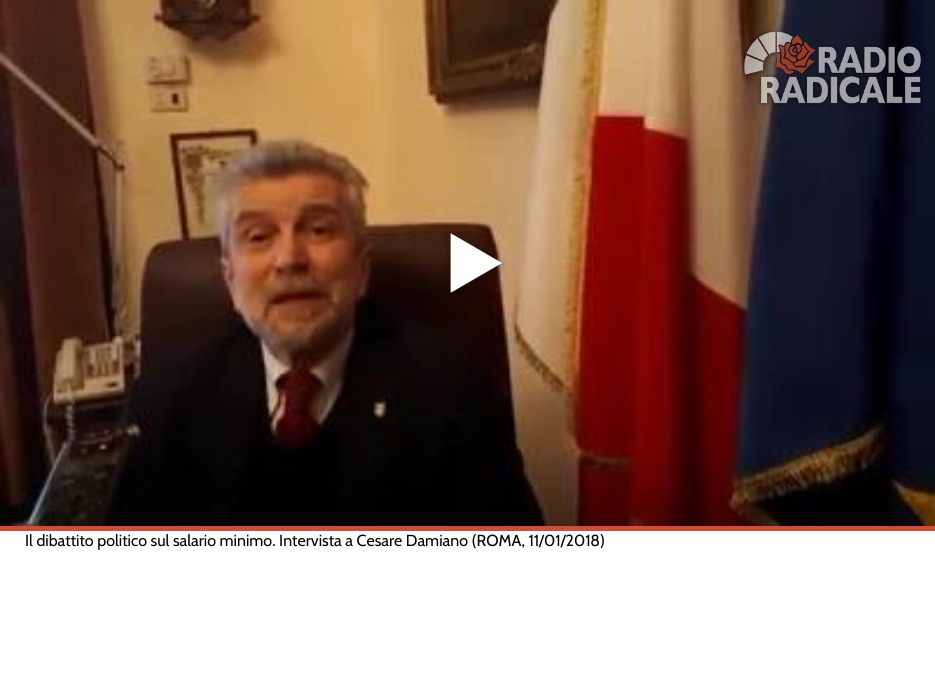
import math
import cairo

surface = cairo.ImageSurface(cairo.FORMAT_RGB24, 935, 681)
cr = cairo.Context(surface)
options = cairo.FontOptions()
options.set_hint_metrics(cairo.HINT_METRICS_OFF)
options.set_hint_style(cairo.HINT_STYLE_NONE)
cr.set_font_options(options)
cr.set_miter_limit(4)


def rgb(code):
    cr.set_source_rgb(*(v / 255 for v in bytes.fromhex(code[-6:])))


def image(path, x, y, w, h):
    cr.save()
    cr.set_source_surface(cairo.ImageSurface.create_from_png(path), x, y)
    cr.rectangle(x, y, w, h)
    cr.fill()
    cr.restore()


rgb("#ffffff")
cr.paint()
image("img/1.png", 0, 0, 935, 526)
image("img/2.png", 741, 29, 182, 78)
image("img/3.png", 445, 232, 61, 61)
rgb("#cc4d39")
cr.rectangle(0, 526, 935, 5)
cr.fill()
cr.select_font_face("Cabin")
cr.set_font_size(16)
rgb("#000000")
cr.move_to(25, 546)
cr.show_text("Il dibattito politico sul salario minimo. Intervista a Cesare Damiano (ROMA, 11/01/2018)")
surface.write_to_png("page.png")
